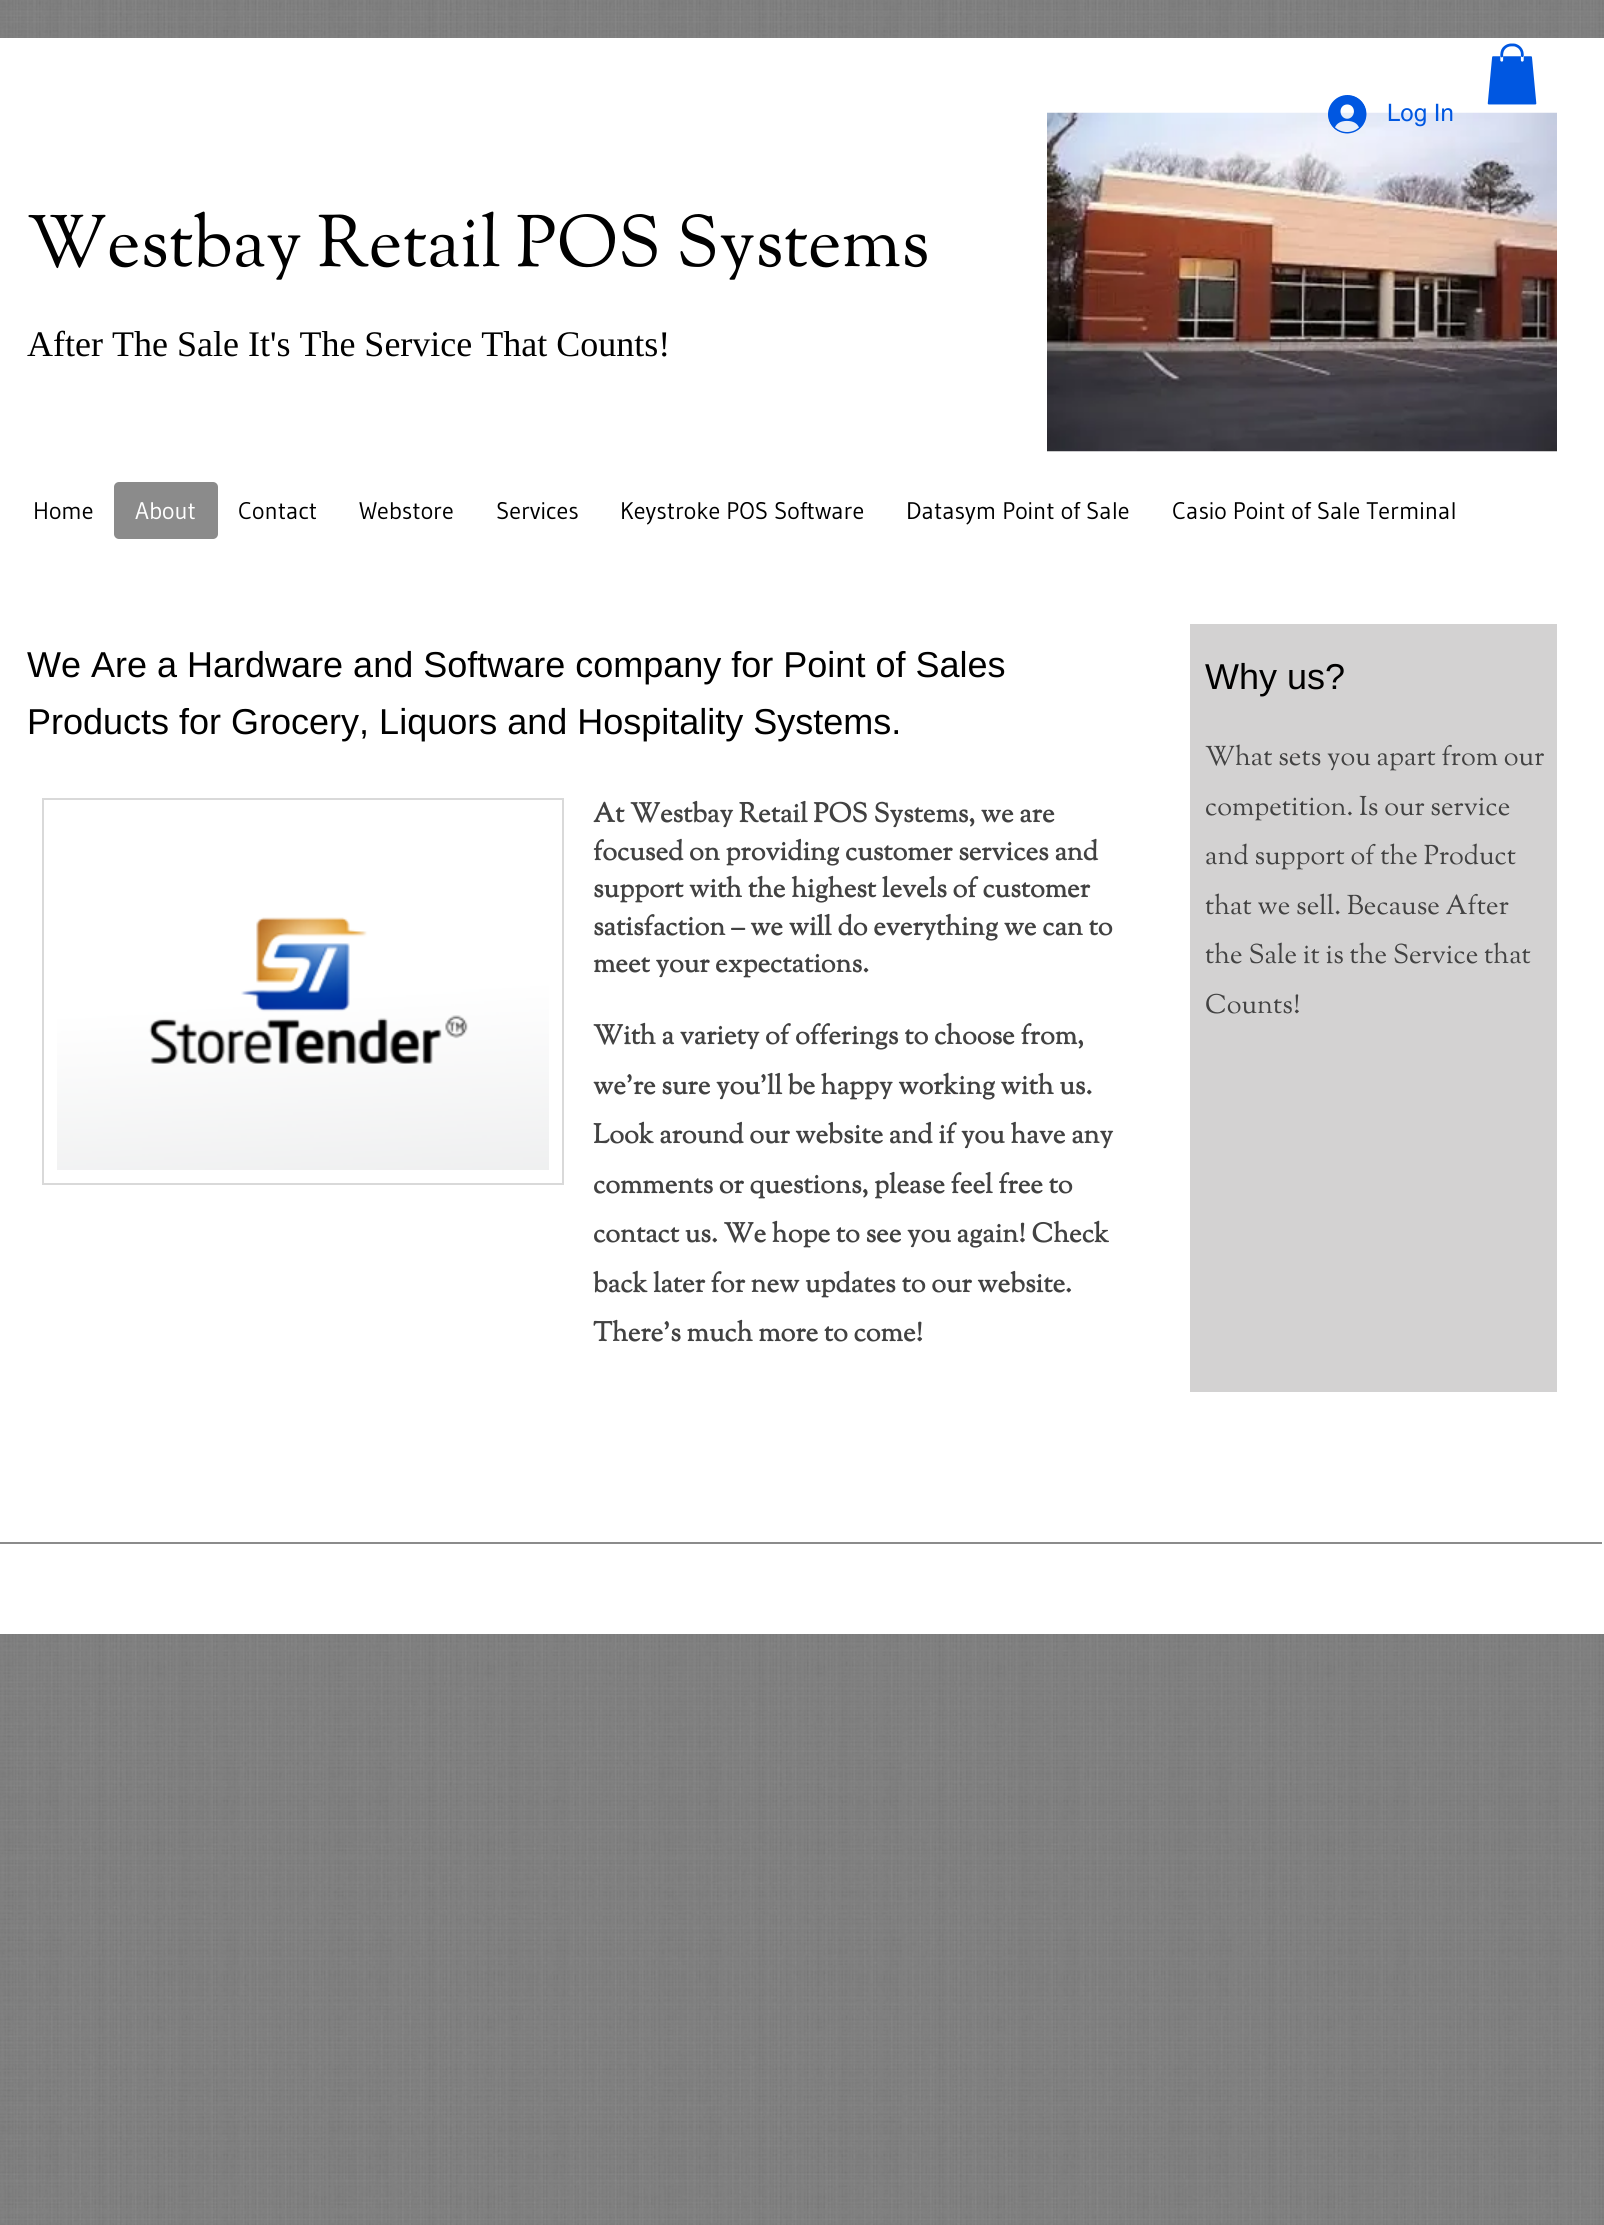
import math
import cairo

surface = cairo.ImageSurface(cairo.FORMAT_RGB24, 1604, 2225)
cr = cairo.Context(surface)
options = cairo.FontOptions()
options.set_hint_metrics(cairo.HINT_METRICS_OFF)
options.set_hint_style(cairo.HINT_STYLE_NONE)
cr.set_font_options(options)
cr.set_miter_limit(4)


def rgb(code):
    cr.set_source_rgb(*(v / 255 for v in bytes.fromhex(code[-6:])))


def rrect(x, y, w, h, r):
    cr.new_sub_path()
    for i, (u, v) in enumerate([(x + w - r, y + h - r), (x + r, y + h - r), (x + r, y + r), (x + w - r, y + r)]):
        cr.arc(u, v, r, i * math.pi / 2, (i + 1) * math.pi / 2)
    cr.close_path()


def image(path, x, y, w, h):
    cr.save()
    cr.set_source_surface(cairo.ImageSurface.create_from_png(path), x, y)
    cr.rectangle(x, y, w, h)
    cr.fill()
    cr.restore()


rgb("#ffffff")
cr.paint()
image("img/1.png", 0, 0, 1604, 2225)
rgb("#ffffff")
cr.rectangle(0, 38, 1604, 541)
cr.fill()
image("img/2.png", 1487, 43, 50, 62)
image("img/4.png", 1047, 112, 510, 340)
image("img/3.png", 1328, 95, 39, 39)
rgb("#8b8b8b")
rrect(114, 482, 104, 57, 5)
cr.fill()
rgb("#ffffff")
cr.rectangle(0, 579, 1604, 1055)
cr.fill()
cr.rectangle(43, 799, 520, 385)
rgb("#d9d9d9")
cr.stroke()
image("img/5.png", 57, 917, 492, 253)
rgb("#d3d2d2")
cr.rectangle(1190, 624, 367, 768)
cr.fill()
rgb("#8b8b8b")
cr.rectangle(0, 1542, 1602, 2)
cr.fill()
cr.select_font_face("helvetica")
cr.set_font_size(24)
rgb("#0057e1")
cr.move_to(1387, 121)
cr.show_text("Log In")
cr.select_font_face("Sorts Mill Goudy")
cr.set_font_size(72)
rgb("#000000")
cr.move_to(27, 266)
cr.show_text("Westbay Retail POS Systems")
cr.select_font_face("Liberation Serif")
cr.set_font_size(36)
cr.move_to(27, 356)
cr.show_text("After The Sale It's The Service That Counts!")
cr.select_font_face("Gudea")
cr.set_font_size(24)
cr.move_to(33, 519)
cr.show_text("Home")
rgb("#ffffff")
cr.move_to(135, 519)
cr.show_text("About")
rgb("#000000")
for x, y, s in [
    (238, 519, "Contact"),
    (359, 519, "Webstore"),
    (496, 519, "Services"),
    (620, 519, "Keystroke POS Software"),
    (906, 519, "Datasym Point of Sale"),
    (1172, 519, "Casio Point of Sale Terminal"),
]:
    cr.move_to(x, y)
    cr.show_text(s)
cr.select_font_face("Liberation Sans")
cr.set_font_size(36)
cr.move_to(27, 677)
cr.show_text("We Are a Hardware and Software company for Point of Sales")
cr.move_to(27, 734)
cr.show_text("Products for Grocery, Liquors and Hospitality Systems.")
cr.select_font_face("Sorts Mill Goudy", cairo.FONT_SLANT_NORMAL, cairo.FONT_WEIGHT_BOLD)
cr.set_font_size(27)
rgb("#424242")
for x, y, s in [
    (593, 822, "At Westbay Retail POS Systems, we are"),
    (593, 860, "focused on providing customer services and"),
    (593, 897, "support with the highest levels of customer"),
    (593, 935, "satisfaction – we will do everything we can to"),
    (593, 972, "meet your expectations."),
    (593, 1044, "With a variety of offerings to choose from,"),
    (593, 1094, "we’re sure you’ll be happy working with us."),
    (593, 1143, "Look around our website and if you have any"),
    (593, 1193, "comments or questions, please feel free to"),
    (593, 1242, "contact us. We hope to see you again! Check"),
    (593, 1292, "back later for new updates to our website."),
    (593, 1341, "There’s much more to come!"),
]:
    cr.move_to(x, y)
    cr.show_text(s)
cr.select_font_face("Liberation Sans")
cr.set_font_size(36)
rgb("#000000")
cr.move_to(1205, 689)
cr.show_text("Why us?")
cr.select_font_face("Sorts Mill Goudy")
cr.set_font_size(27)
rgb("#424242")
for x, y, s in [
    (1205, 765, "What sets you apart from our"),
    (1205, 815, "competition. Is our service"),
    (1205, 864, "and support of the Product"),
    (1205, 914, "that we sell. Because After"),
    (1205, 963, "the Sale it is the Service that"),
    (1205, 1013, "Counts!"),
]:
    cr.move_to(x, y)
    cr.show_text(s)
surface.write_to_png("page.png")
